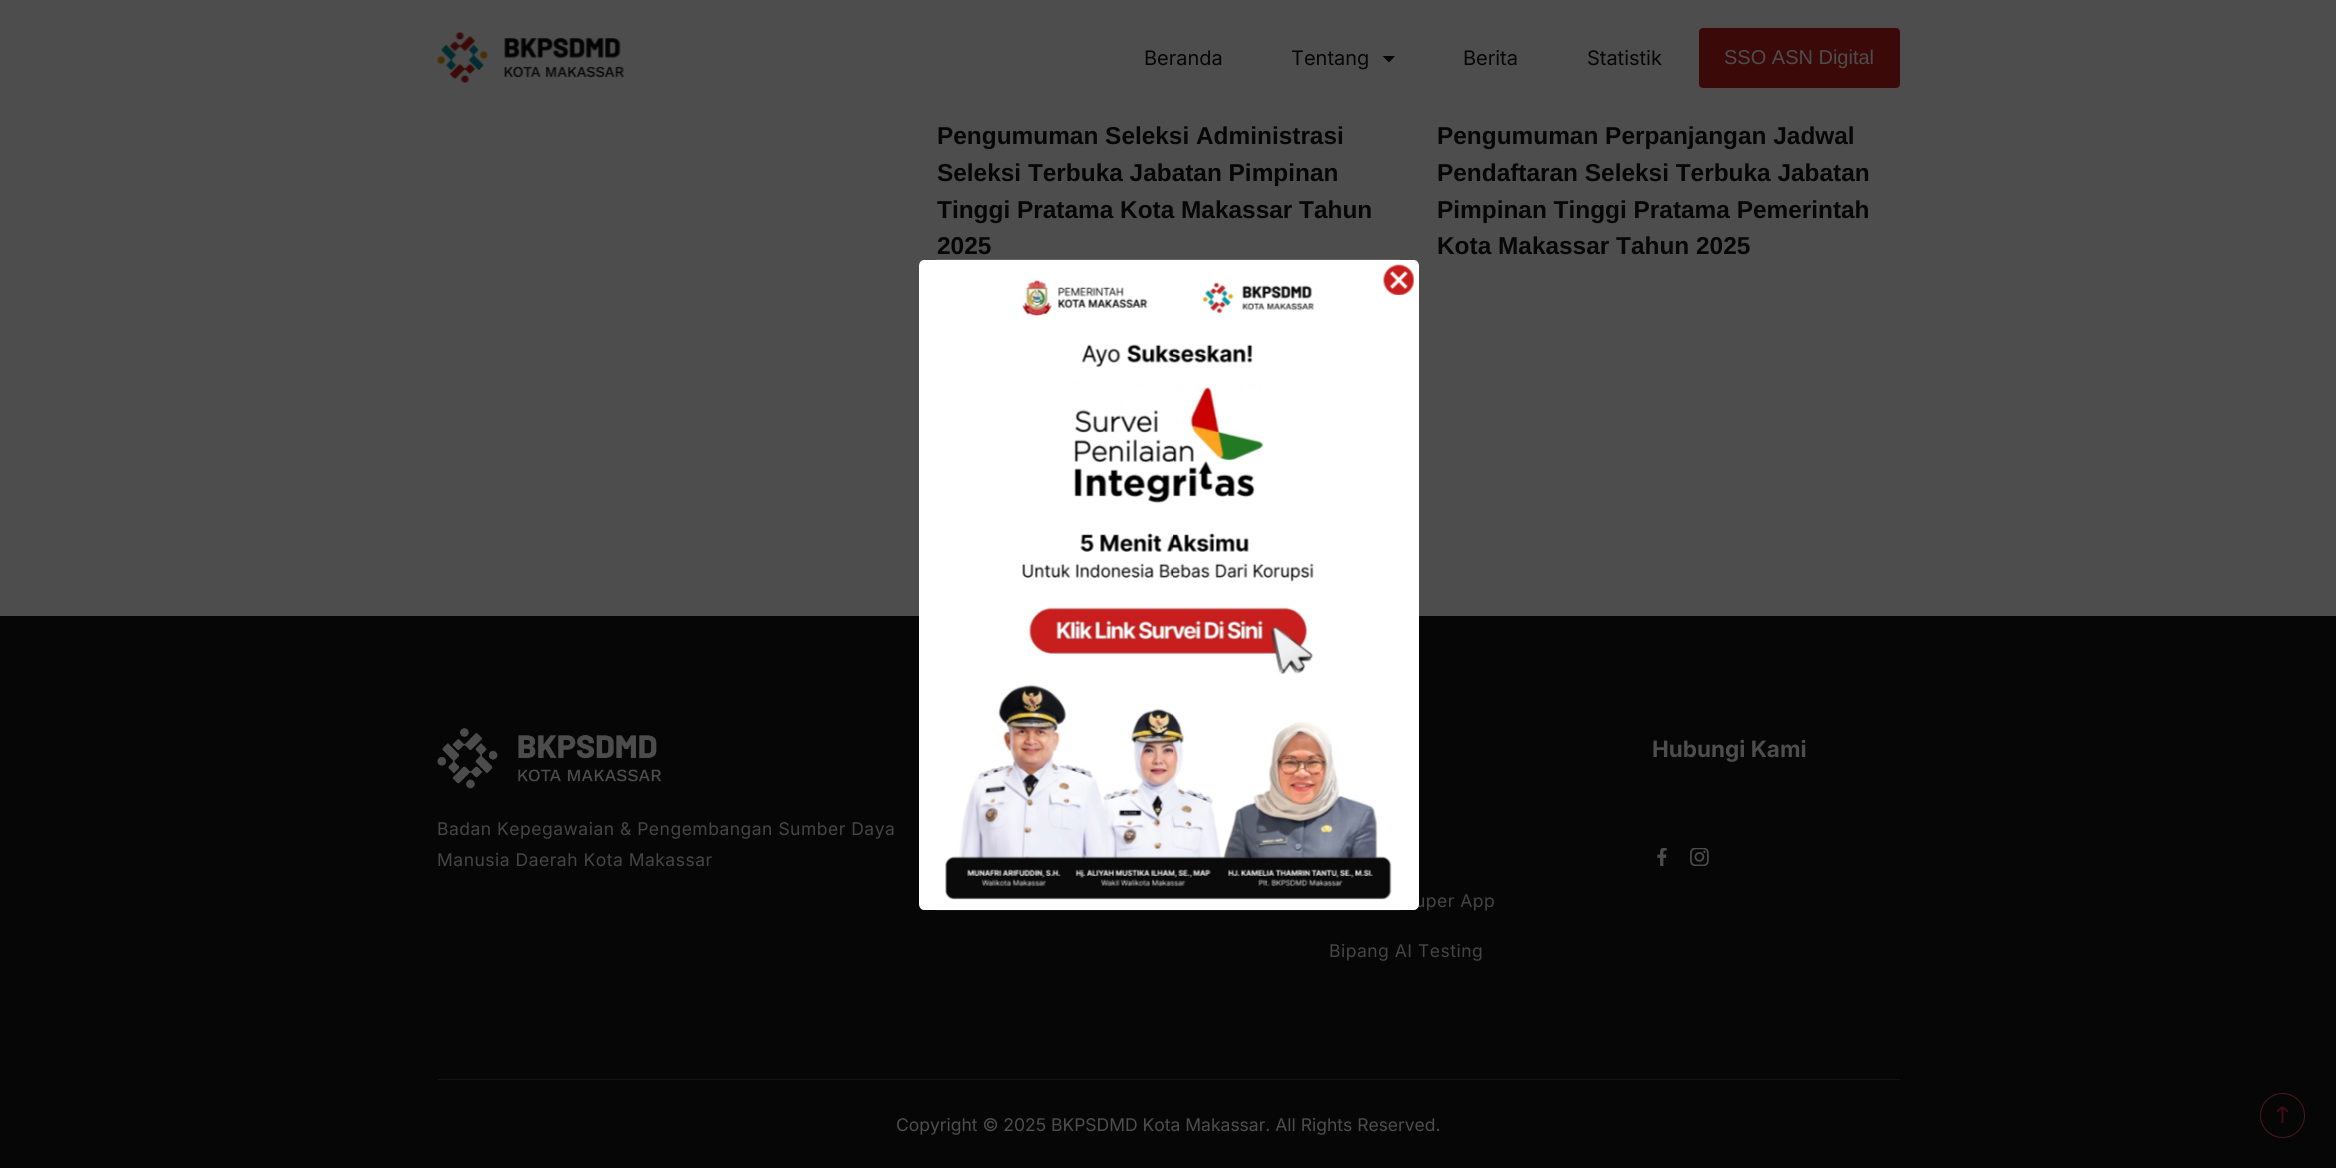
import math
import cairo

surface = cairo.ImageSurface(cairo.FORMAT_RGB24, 2336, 1168)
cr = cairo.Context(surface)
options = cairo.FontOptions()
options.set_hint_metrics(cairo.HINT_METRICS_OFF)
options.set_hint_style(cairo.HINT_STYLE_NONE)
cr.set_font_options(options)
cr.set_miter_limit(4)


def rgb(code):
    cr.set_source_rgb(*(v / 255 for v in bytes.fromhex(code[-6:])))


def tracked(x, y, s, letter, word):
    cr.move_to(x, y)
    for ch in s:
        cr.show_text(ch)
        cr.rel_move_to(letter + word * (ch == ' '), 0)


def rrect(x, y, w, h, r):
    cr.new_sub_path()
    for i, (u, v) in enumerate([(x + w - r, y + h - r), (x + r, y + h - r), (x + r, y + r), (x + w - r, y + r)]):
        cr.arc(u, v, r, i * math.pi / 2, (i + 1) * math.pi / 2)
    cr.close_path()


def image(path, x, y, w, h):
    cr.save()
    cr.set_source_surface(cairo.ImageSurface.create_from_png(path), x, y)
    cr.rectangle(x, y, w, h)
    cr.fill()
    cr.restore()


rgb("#4d4d4d")
cr.paint()
image("img/1.png", 437, 32, 188, 51)
rgb("#060606")
cr.new_path()
cr.move_to(1389, 62.5)
cr.line_to(1382.5, 56)
cr.line_to(1395, 56)
cr.close_path()
cr.fill()
rgb("#3c0909")
rrect(1699, 28, 201, 60, 4)
cr.fill()
rgb("#060606")
cr.rectangle(0, 616, 2336, 552)
cr.fill()
rgb("#111418")
cr.rectangle(438, 1079, 1462, 1)
cr.fill()
image("img/2.png", 1657, 848, 10, 18)
image("img/3.png", 1690, 848, 19, 18)
image("img/4.png", 437, 728, 225, 61)
cr.arc(2282.5, 1115.5, 22, 0, 2 * math.pi)
rgb("#481919")
cr.set_line_width(1)
cr.stroke()
cr.new_path()
cr.move_to(2277, 1111.5)
cr.line_to(2282.5, 1107)
cr.move_to(2282.5, 1107)
cr.line_to(2288, 1111.5)
cr.move_to(2282.5, 1107)
cr.line_to(2282.5, 1123)
rgb("#450c16")
cr.set_line_width(1.8)
cr.stroke()
cr.select_font_face("Inter")
cr.set_font_size(20)
rgb("#060606")
for x, y, s in [
    (1144, 65, "Beranda"),
    (1291, 65, "Tentang"),
    (1463, 65, "Berita"),
    (1587, 65, "Statistik"),
]:
    cr.move_to(x, y)
    cr.show_text(s)
cr.select_font_face("Liberation Sans")
rgb("#4d4d4d")
cr.move_to(1724, 64)
cr.show_text("SSO ASN Digital")
cr.select_font_face("Liberation Sans", cairo.FONT_SLANT_NORMAL, cairo.FONT_WEIGHT_BOLD)
cr.set_font_size(24.4)
rgb("#060606")
for x, y, s in [
    (937, 144, "Pengumuman Seleksi Administrasi"),
    (937, 181, "Seleksi Terbuka Jabatan Pimpinan"),
    (937, 218, "Tinggi Pratama Kota Makassar Tahun"),
    (937, 254, "2025"),
    (1437, 144, "Pengumuman Perpanjangan Jadwal"),
    (1437, 181, "Pendaftaran Seleksi Terbuka Jabatan"),
    (1437, 218, "Pimpinan Tinggi Pratama Pemerintah"),
    (1437, 254, "Kota Makassar Tahun 2025"),
]:
    cr.move_to(x, y)
    cr.show_text(s)
cr.select_font_face("Inter", cairo.FONT_SLANT_NORMAL, cairo.FONT_WEIGHT_BOLD)
cr.set_font_size(22.5)
rgb("#4d4d4d")
cr.move_to(1652, 757)
cr.show_text("Hubungi Kami")
cr.select_font_face("Inter")
cr.set_font_size(17.5)
rgb("#454547")
for x, y, s in [
    (437, 835, "Badan Kepegawaian & Pengembangan Sumber Daya"),
    (437, 866, "Manusia Daerah Kota Makassar"),
    (1415, 907, "uper App"),
    (1329, 957, "Bipang AI Testing"),
]:
    tracked(x, y, s, 0.5, 0)
rgb("#4d4d4d")
cr.move_to(896, 1131)
cr.show_text("Copyright © 2025 BKPSDMD Kota Makassar. All Rights Reserved.")
rgb("#ffffff")
cr.new_path()
cr.move_to(924, 260)
cr.line_to(1414, 260)
cr.curve_to(1417, 260, 1419, 263, 1419, 266)
cr.line_to(1419, 904)
cr.curve_to(1419, 907, 1417, 910, 1414, 910)
cr.line_to(924, 910)
cr.curve_to(921, 910, 919, 907, 919, 904)
cr.line_to(919, 266)
cr.curve_to(919, 263, 921, 260, 924, 260)
cr.close_path()
cr.fill()
image("img/5.png", 936, 259, 465, 652)
image("img/6.png", 1383, 264, 31, 31)
surface.write_to_png("page.png")
